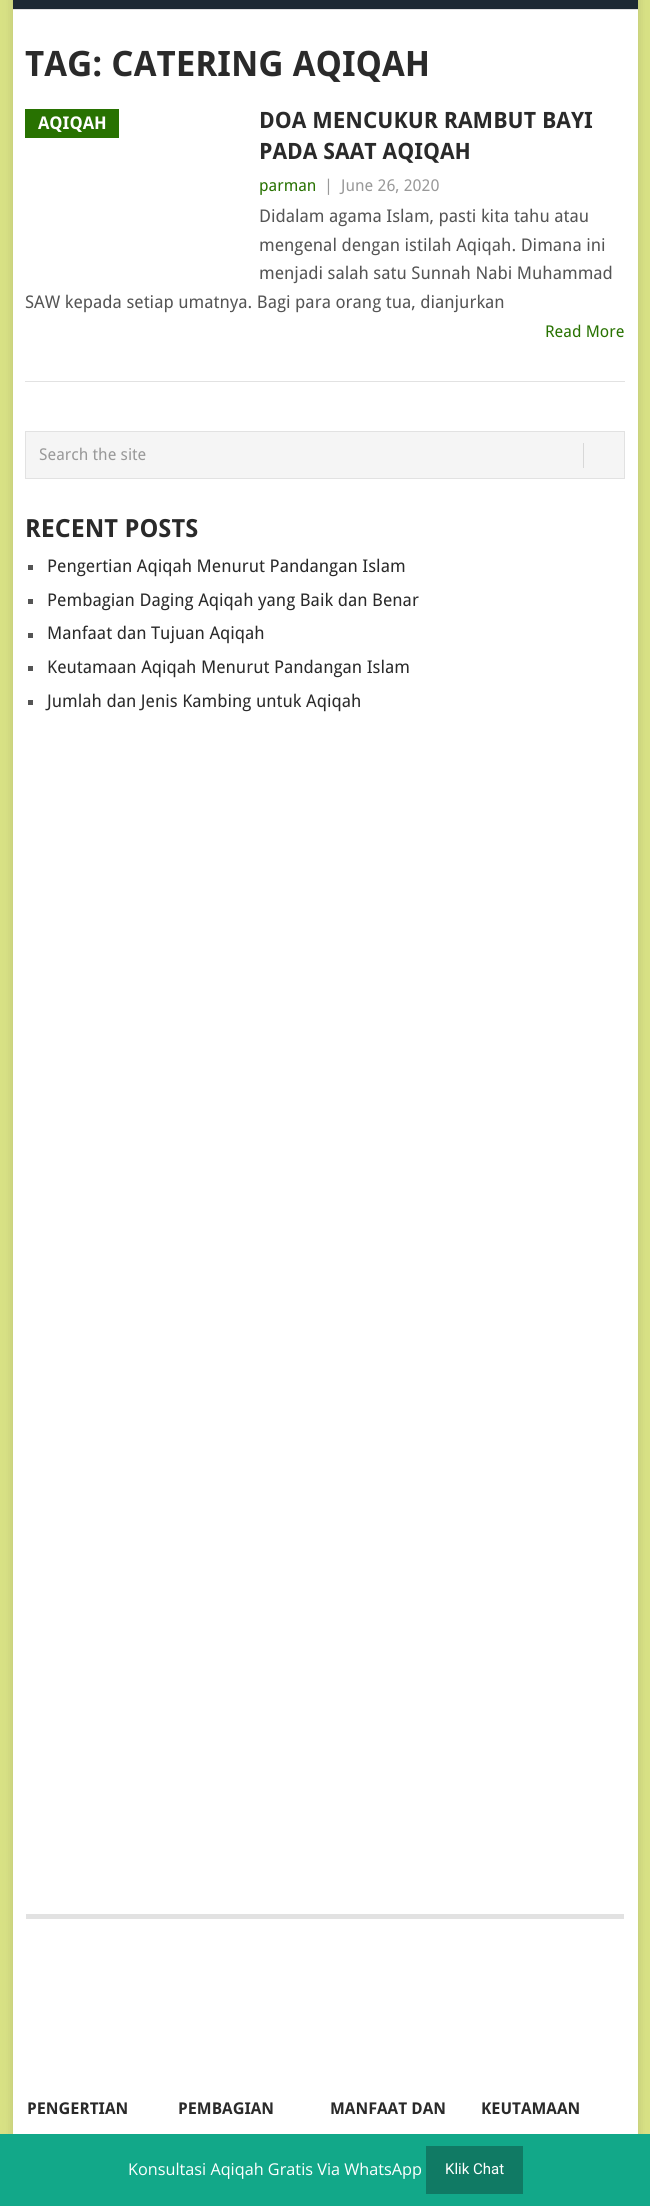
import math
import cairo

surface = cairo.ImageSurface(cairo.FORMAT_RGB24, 650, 2206)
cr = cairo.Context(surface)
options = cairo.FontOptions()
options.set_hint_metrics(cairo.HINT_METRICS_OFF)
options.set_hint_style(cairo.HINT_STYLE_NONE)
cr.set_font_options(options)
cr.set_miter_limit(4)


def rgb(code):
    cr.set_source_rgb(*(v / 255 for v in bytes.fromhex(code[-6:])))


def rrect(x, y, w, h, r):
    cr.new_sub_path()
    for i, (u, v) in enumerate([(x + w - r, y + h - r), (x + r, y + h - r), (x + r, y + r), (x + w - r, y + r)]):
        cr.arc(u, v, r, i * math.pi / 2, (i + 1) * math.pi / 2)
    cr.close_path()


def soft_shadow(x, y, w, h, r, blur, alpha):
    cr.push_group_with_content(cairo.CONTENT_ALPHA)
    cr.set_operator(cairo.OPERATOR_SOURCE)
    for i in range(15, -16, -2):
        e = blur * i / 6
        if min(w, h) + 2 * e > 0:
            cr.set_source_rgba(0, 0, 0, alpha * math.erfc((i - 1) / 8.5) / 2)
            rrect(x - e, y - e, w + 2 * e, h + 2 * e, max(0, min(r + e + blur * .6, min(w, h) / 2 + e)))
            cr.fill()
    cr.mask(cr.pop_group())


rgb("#d9e285")
cr.paint()
rgb("#323232")
soft_shadow(13, -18, 625, 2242, 0, 6, 0.17)
for x, y, w, h, color in [
    (13, 10, 625, 2124, "#ffffff"),
    (13, 0, 625, 9, "#1d2933"),
    (13, 9, 625, 1, "#e2e2e2"),
    (25, 381, 600, 1, "#e2e2e2"),
    (25, 109, 94, 29, "#287201"),
]:
    rgb(color)
    cr.rectangle(x, y, w, h)
    cr.fill()
rgb("#f5f5f5")
cr.rectangle(25.5, 431.5, 599, 47)
cr.fill_preserve()
rgb("#e2e2e2")
cr.set_line_width(1)
cr.stroke()
for x, y, w, h, color in [
    (583, 443, 1, 25, "#d8d8d8"),
    (28, 565, 5, 5, "#555555"),
    (28, 599, 5, 5, "#555555"),
    (28, 633, 5, 5, "#555555"),
    (28, 666, 5, 5, "#555555"),
    (28, 700, 5, 5, "#555555"),
    (26, 1914, 598, 5, "#e2e2e2"),
    (0, 2134, 650, 72, "#12a889"),
    (426, 2146, 97, 48, "#107a64"),
]:
    rgb(color)
    cr.rectangle(x, y, w, h)
    cr.fill()
cr.select_font_face("Droid Sans", cairo.FONT_SLANT_NORMAL, cairo.FONT_WEIGHT_BOLD)
cr.set_font_size(35)
rgb("#2a2a2a")
cr.move_to(25, 76)
cr.show_text("TAG: CATERING AQIQAH")
cr.set_font_size(17.5)
rgb("#ffffff")
cr.move_to(38, 129)
cr.show_text("AQIQAH")
cr.set_font_size(22.5)
rgb("#2a2a2a")
cr.move_to(259, 128)
cr.show_text("DOA MENCUKUR RAMBUT BAYI")
cr.move_to(259, 159)
cr.show_text("PADA SAAT AQIQAH")
cr.select_font_face("Droid Sans")
cr.set_font_size(16.25)
rgb("#287201")
cr.move_to(259, 191)
cr.show_text("parman")
rgb("#999999")
cr.move_to(324, 191)
cr.show_text("|")
cr.move_to(341, 191)
cr.show_text("June 26, 2020")
cr.set_font_size(17.5)
rgb("#555555")
for x, y, s in [
    (259, 222, "Didalam agama Islam, pasti kita tahu atau"),
    (259, 251, "mengenal dengan istilah Aqiqah. Dimana ini"),
    (259, 279, "menjadi salah satu Sunnah Nabi Muhammad"),
    (25, 308, "SAW kepada setiap umatnya. Bagi para orang tua, dianjurkan"),
]:
    cr.move_to(x, y)
    cr.show_text(s)
cr.set_font_size(16.25)
rgb("#287201")
cr.move_to(545, 337)
cr.show_text("Read More")
rgb("#999999")
cr.move_to(39, 460)
cr.show_text("Search the site")
cr.select_font_face("Droid Sans", cairo.FONT_SLANT_NORMAL, cairo.FONT_WEIGHT_BOLD)
cr.set_font_size(25)
rgb("#2a2a2a")
cr.move_to(25, 537)
cr.show_text("RECENT POSTS")
cr.select_font_face("Droid Sans")
cr.set_font_size(17.5)
for x, y, s in [
    (47, 572, "Pengertian Aqiqah Menurut Pandangan Islam"),
    (47, 606, "Pembagian Daging Aqiqah yang Baik dan Benar"),
    (47, 639, "Manfaat dan Tujuan Aqiqah"),
    (47, 673, "Keutamaan Aqiqah Menurut Pandangan Islam"),
    (47, 707, "Jumlah dan Jenis Kambing untuk Aqiqah"),
]:
    cr.move_to(x, y)
    cr.show_text(s)
cr.select_font_face("Droid Sans", cairo.FONT_SLANT_NORMAL, cairo.FONT_WEIGHT_BOLD)
cr.set_font_size(16.25)
for x, y, s in [
    (27, 2114, "PENGERTIAN"),
    (178, 2114, "PEMBAGIAN"),
    (330, 2114, "MANFAAT DAN"),
    (481, 2114, "KEUTAMAAN"),
]:
    cr.move_to(x, y)
    cr.show_text(s)
cr.select_font_face("Open Sans")
rgb("#ffffff")
cr.move_to(128, 2175)
cr.show_text("Konsultasi Aqiqah Gratis Via WhatsApp")
cr.select_font_face("Roboto")
cr.set_font_size(15)
cr.move_to(445, 2174)
cr.show_text("Klik Chat")
surface.write_to_png("page.png")
